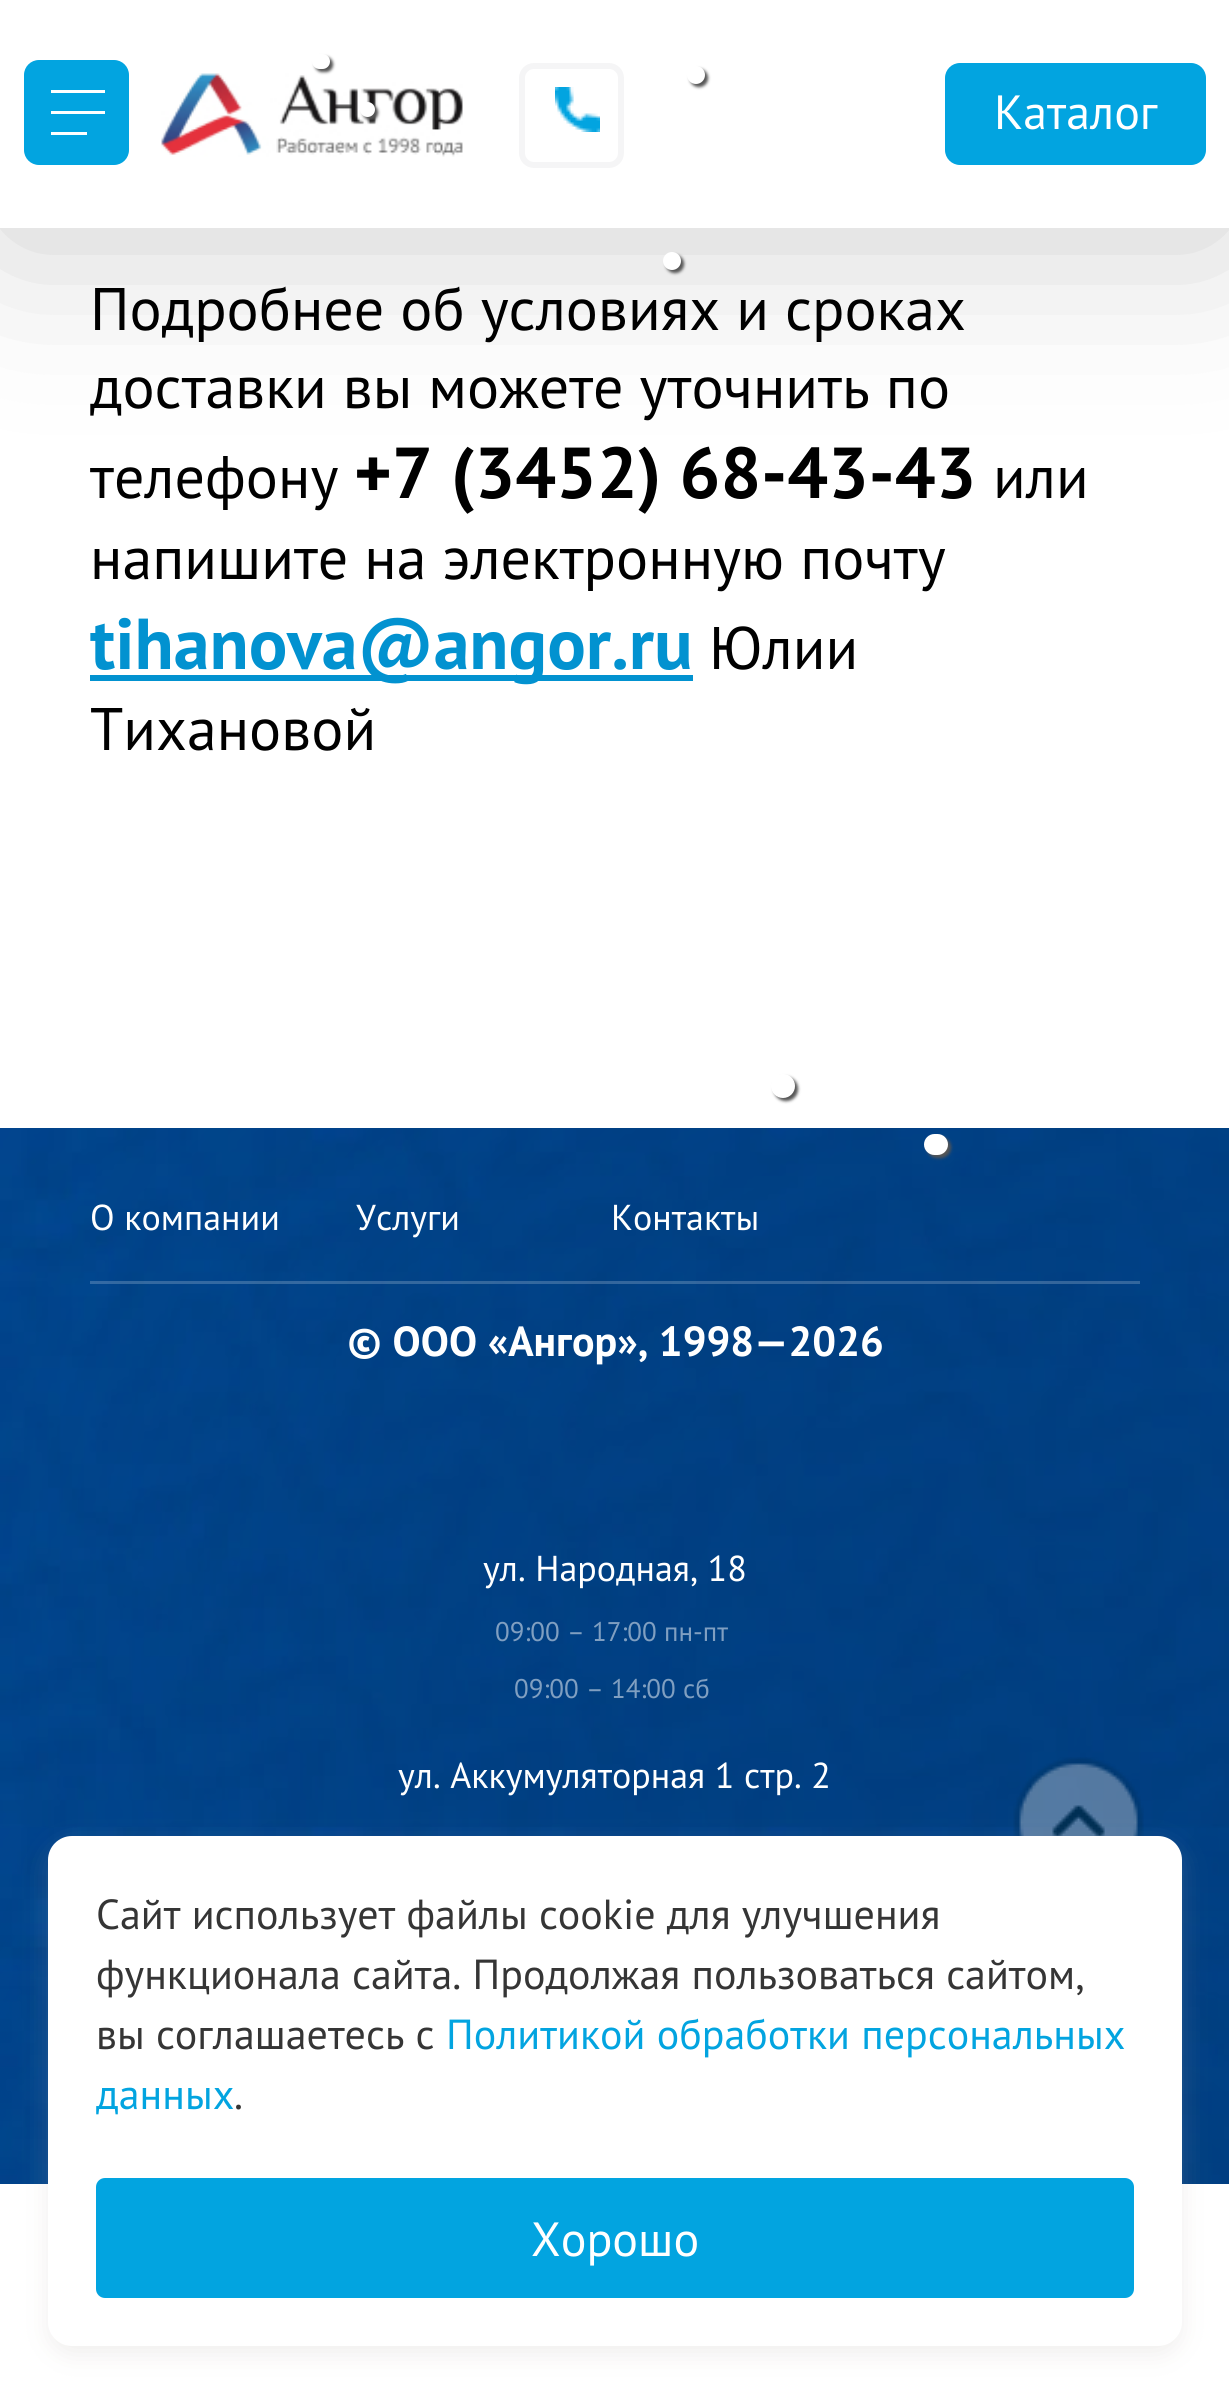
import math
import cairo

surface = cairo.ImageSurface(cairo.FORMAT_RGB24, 1229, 2392)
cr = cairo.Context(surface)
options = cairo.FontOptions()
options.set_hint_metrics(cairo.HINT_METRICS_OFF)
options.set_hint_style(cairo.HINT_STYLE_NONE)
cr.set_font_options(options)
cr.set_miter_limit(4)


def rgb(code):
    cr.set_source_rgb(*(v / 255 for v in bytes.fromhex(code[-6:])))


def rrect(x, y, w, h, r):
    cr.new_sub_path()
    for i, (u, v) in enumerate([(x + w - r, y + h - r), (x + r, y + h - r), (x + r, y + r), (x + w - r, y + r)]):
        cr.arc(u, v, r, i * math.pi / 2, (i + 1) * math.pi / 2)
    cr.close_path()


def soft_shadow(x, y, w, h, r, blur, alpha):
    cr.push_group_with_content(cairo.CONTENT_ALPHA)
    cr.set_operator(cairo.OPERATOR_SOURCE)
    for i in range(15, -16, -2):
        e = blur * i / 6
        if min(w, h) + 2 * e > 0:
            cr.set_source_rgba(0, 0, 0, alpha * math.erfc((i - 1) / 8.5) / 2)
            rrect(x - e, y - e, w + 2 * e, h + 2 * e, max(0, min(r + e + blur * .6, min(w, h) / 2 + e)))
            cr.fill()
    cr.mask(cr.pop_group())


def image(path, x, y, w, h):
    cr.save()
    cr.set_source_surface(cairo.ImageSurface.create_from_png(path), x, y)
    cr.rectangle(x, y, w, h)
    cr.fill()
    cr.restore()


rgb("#ffffff")
cr.paint()
rgb("#000000")
soft_shadow(0, 12, 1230, 228, 0, 90, 0.2)
rgb("#ffffff")
cr.rectangle(0, 0, 1229, 228)
cr.fill()
rgb("#02a4e0")
rrect(24, 60, 105, 105, 15)
cr.fill()
for x, y, w, h, color in [
    (51, 90, 54, 3, "#ffffff"),
    (51, 111, 54, 3, "#ffffff"),
    (51, 132, 36, 3, "#ffffff"),
]:
    rgb(color)
    cr.rectangle(x, y, w, h)
    cr.fill()
image("img/1.png", 161, 73, 302, 84)
rgb("#555555")
soft_shadow(315, 57, 18, 15, 7.5, 1.5, 1)
rgb("#ffffff")
rrect(312, 54, 18, 15, 7.5)
cr.fill()
rgb("#555555")
soft_shadow(690, 69, 18, 18, 9, 1.5, 1)
rgb("#ffffff")
cr.arc(696, 75, 9, 0, 2 * math.pi)
cr.fill()
rgb("#555555")
soft_shadow(363, 105, 15, 15, 7.5, 1.5, 1)
rgb("#ffffff")
cr.arc(367.5, 109.5, 7.5, 0, 2 * math.pi)
cr.fill()
rrect(522, 66, 99, 99, 12)
rgb("#f5f5f6")
cr.set_line_width(6)
cr.stroke()
image("img/2.png", 555, 87, 45, 45)
rgb("#02a4e0")
rrect(945, 63, 261, 102, 15)
cr.fill()
rgb("#555555")
soft_shadow(666, 255, 18, 18, 9, 1.5, 1)
rgb("#ffffff")
cr.arc(672, 261, 9, 0, 2 * math.pi)
cr.fill()
rgb("#0292d0")
cr.rectangle(90, 675, 603, 6)
cr.fill()
rgb("#555555")
soft_shadow(774, 1077, 24, 24, 12, 1.5, 1)
rgb("#ffffff")
cr.arc(783, 1086, 12, 0, 2 * math.pi)
cr.fill()
image("img/3.png", 0, 1128, 1229, 1056)
image("img/4.png", 0, 1128, 1229, 1056)
rgb("#555555")
soft_shadow(927, 1137, 24, 21, 10.5, 1.5, 1)
rgb("#ffffff")
rrect(924, 1134, 24, 21, 10.5)
cr.fill()
cr.set_source_rgba(1, 1, 1, 0.2)
cr.rectangle(90, 1281, 1050, 3)
cr.fill()
image("img/5.png", 1013, 1757, 131, 79)
rgb("#b8b1a9")
soft_shadow(48, 1845, 1134, 510, 24, 12, 0.2)
rgb("#ffffff")
rrect(48, 1836, 1134, 510, 24)
cr.fill()
rgb("#02a4e0")
rrect(96, 2178, 1038, 120, 9)
cr.fill()
cr.select_font_face("PT Sans")
cr.set_font_size(48)
rgb("#ffffff")
cr.move_to(994, 129)
cr.show_text("Каталог")
cr.set_font_size(60)
rgb("#000000")
for x, y, s in [
    (90, 330, "Подробнее об условиях и сроках"),
    (90, 408, "доставки вы можете уточнить по"),
    (90, 498, "телефону"),
]:
    cr.move_to(x, y)
    cr.show_text(s)
cr.select_font_face("PT Sans", cairo.FONT_SLANT_NORMAL, cairo.FONT_WEIGHT_BOLD)
cr.set_font_size(72)
cr.move_to(354, 498)
cr.show_text("+7 (3452) 68-43-43")
cr.select_font_face("PT Sans")
cr.set_font_size(60)
cr.move_to(993, 498)
cr.show_text("или")
cr.move_to(90, 579)
cr.show_text("напишите на электронную почту")
cr.select_font_face("PT Sans", cairo.FONT_SLANT_NORMAL, cairo.FONT_WEIGHT_BOLD)
cr.set_font_size(72)
rgb("#0292d0")
cr.move_to(90, 669)
cr.show_text("tihanova@angor.ru")
cr.select_font_face("PT Sans")
cr.set_font_size(60)
rgb("#000000")
cr.move_to(709, 669)
cr.show_text("Юлии")
cr.move_to(90, 750)
cr.show_text("Тихановой")
cr.set_font_size(36)
rgb("#ffffff")
for x, y, s in [
    (90, 1230, "О компании"),
    (356, 1230, "Услуги"),
    (611, 1230, "Контакты"),
]:
    cr.move_to(x, y)
    cr.show_text(s)
cr.select_font_face("PT Sans", cairo.FONT_SLANT_NORMAL, cairo.FONT_WEIGHT_BOLD)
cr.set_font_size(42)
cr.move_to(347, 1356)
cr.show_text("© ООО «Ангор», 1998—2026")
cr.select_font_face("PT Sans")
cr.set_font_size(36)
cr.move_to(483, 1581)
cr.show_text("ул. Народная, 18")
cr.set_font_size(27)
rgb("#809fc1")
cr.move_to(495, 1641)
cr.show_text("09:00 – 17:00 пн-пт")
cr.move_to(514, 1698)
cr.show_text("09:00 – 14:00 сб")
cr.set_font_size(36)
rgb("#ffffff")
cr.move_to(398, 1788)
cr.show_text("ул. Аккумуляторная 1 стр. 2")
cr.set_font_size(42)
rgb("#353535")
for x, y, s in [
    (96, 1929, "Сайт использует файлы cookie для улучшения"),
    (96, 1989, "функционала сайта. Продолжая пользоваться сайтом,"),
    (96, 2049, "вы соглашаетесь с"),
]:
    cr.move_to(x, y)
    cr.show_text(s)
rgb("#02a4e0")
cr.move_to(446, 2049)
cr.show_text("Политикой обработки персональных")
cr.move_to(96, 2109)
cr.show_text("данных")
rgb("#353535")
cr.move_to(234, 2109)
cr.show_text(".")
cr.set_font_size(48)
rgb("#ffffff")
cr.move_to(531, 2256)
cr.show_text("Хорошо")
surface.write_to_png("page.png")
